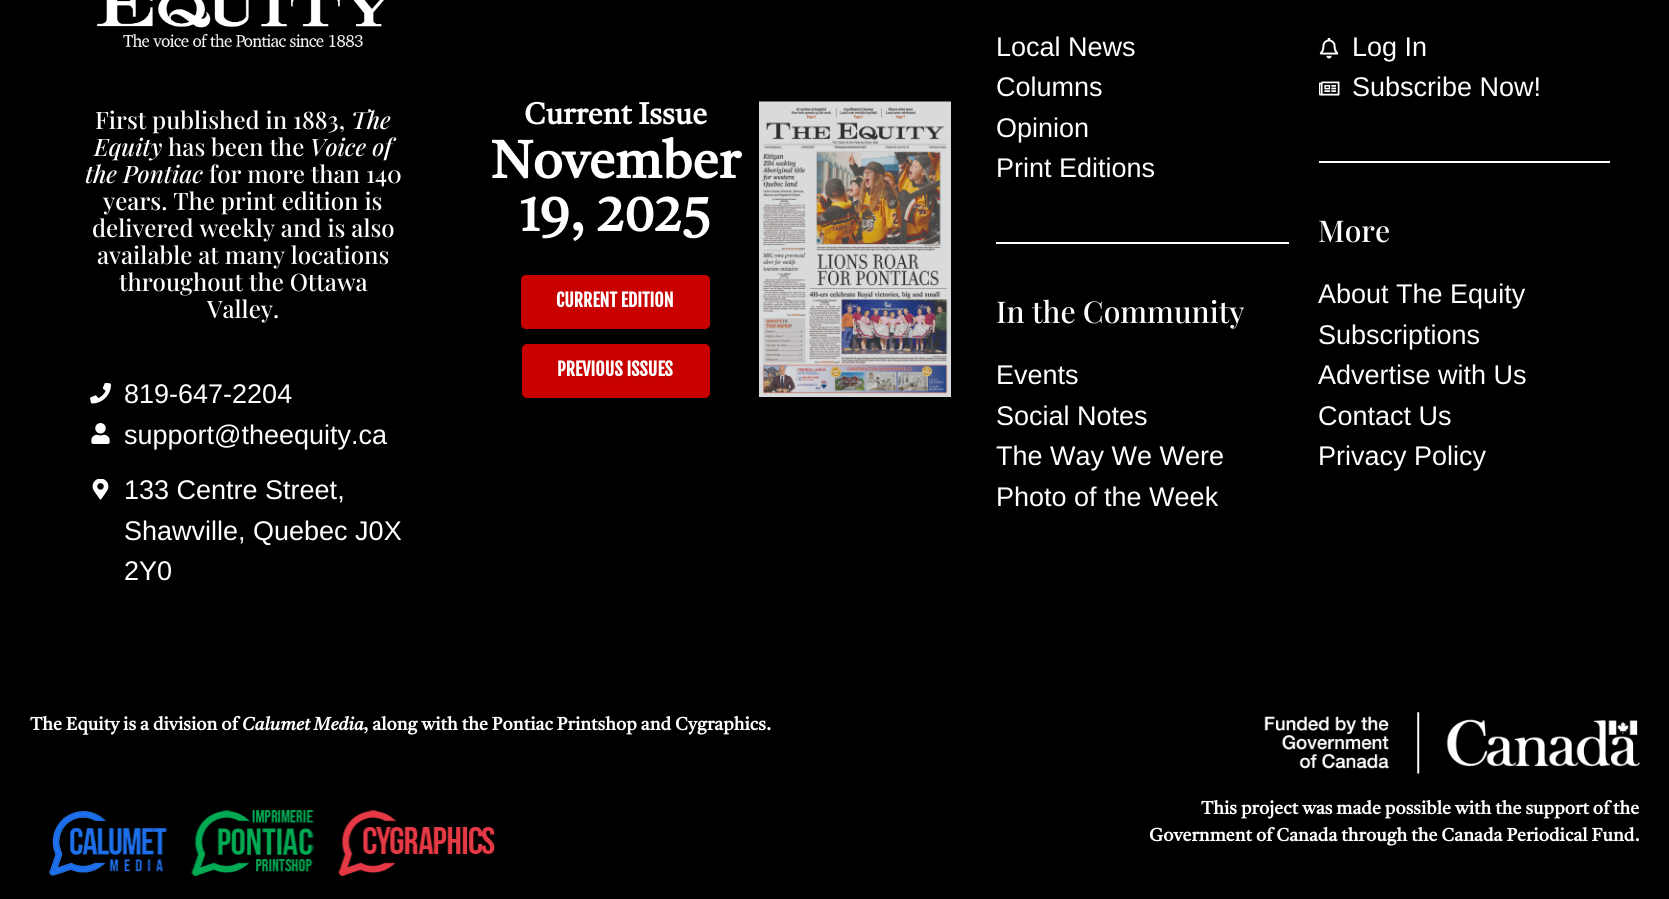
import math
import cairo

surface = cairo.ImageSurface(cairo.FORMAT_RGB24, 1669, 899)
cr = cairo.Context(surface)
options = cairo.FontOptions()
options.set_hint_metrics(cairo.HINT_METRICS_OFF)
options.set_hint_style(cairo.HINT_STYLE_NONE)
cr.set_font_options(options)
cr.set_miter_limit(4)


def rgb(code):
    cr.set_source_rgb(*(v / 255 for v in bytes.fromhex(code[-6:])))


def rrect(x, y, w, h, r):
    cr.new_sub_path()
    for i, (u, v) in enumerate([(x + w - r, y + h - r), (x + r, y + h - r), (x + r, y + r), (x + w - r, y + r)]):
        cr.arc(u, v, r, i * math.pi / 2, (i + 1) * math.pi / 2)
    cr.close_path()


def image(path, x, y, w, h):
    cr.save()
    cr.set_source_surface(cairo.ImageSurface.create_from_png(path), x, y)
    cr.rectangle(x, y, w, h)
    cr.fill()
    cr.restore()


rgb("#000000")
cr.paint()
image("img/1.png", 96, 0, 288, 48)
image("img/2.png", 90, 383, 21, 21)
image("img/3.png", 91, 423, 19, 21)
image("img/4.png", 92, 479, 17, 21)
rgb("#c80000")
rrect(521, 275, 189, 54, 5)
cr.fill()
rrect(522, 344, 188, 54, 5)
cr.fill()
image("img/5.png", 759, 101, 192, 296)
rgb("#ffffff")
cr.rectangle(996, 242, 293, 2)
cr.fill()
image("img/6.png", 1319, 38, 20, 21)
image("img/7.png", 1319, 81, 21, 15)
cr.rectangle(1319, 161, 291, 2)
cr.fill()
image("img/8.png", 49, 811, 118, 65)
image("img/9.png", 191, 810, 123, 66)
image("img/10.png", 338, 810, 157, 66)
image("img/11.png", 1264, 712, 376, 62)
cr.select_font_face("Playfair Display Medium")
cr.set_font_size(24)
cr.move_to(95, 129)
cr.show_text("First published in 1883,")
cr.select_font_face("Playfair Display Medium", cairo.FONT_SLANT_ITALIC)
cr.move_to(351, 129)
cr.show_text("The")
cr.move_to(94, 156)
cr.show_text("Equity")
cr.select_font_face("Playfair Display Medium")
cr.move_to(168, 156)
cr.show_text("has been the")
cr.select_font_face("Playfair Display Medium", cairo.FONT_SLANT_ITALIC)
cr.move_to(310, 156)
cr.show_text("Voice of")
cr.move_to(85, 183)
cr.show_text("the Pontiac")
cr.select_font_face("Playfair Display Medium")
for x, y, s in [
    (209, 183, "for more than 140"),
    (103, 210, "years. The print edition is"),
    (92, 237, "delivered weekly and is also"),
    (97, 264, "available at many locations"),
    (119, 291, "throughout the Ottawa"),
    (207, 318, "Valley."),
]:
    cr.move_to(x, y)
    cr.show_text(s)
cr.select_font_face("Liberation Sans")
cr.set_font_size(27)
for x, y, s in [
    (124, 403, "819-647-2204"),
    (124, 444, "support@theequity.ca"),
    (124, 499, "133 Centre Street,"),
    (124, 540, "Shawville, Quebec J0X"),
    (124, 580, "2Y0"),
]:
    cr.move_to(x, y)
    cr.show_text(s)
cr.select_font_face("Castoro", cairo.FONT_SLANT_NORMAL, cairo.FONT_WEIGHT_BOLD)
cr.set_font_size(30)
cr.move_to(524, 124)
cr.show_text("Current Issue")
cr.set_font_size(52.5)
cr.move_to(491, 178)
cr.show_text("November")
cr.move_to(520, 231)
cr.show_text("19, 2025")
cr.select_font_face("Fjalla One", cairo.FONT_SLANT_NORMAL, cairo.FONT_WEIGHT_BOLD)
cr.set_font_size(18)
cr.move_to(556, 307)
cr.show_text("CURRENT EDITION")
cr.move_to(557, 376)
cr.show_text("PREVIOUS ISSUES")
cr.select_font_face("Liberation Sans")
cr.set_font_size(27)
for x, y, s in [
    (996, 56, "Local News"),
    (996, 96, "Columns"),
    (996, 137, "Opinion"),
    (996, 177, "Print Editions"),
]:
    cr.move_to(x, y)
    cr.show_text(s)
cr.select_font_face("Playfair Display Medium")
cr.set_font_size(30)
cr.move_to(996, 323)
cr.show_text("In the Community")
cr.select_font_face("Liberation Sans")
cr.set_font_size(27)
for x, y, s in [
    (996, 384, "Events"),
    (996, 425, "Social Notes"),
    (996, 465, "The Way We Were"),
    (996, 506, "Photo of the Week"),
    (1352, 56, "Log In"),
    (1352, 96, "Subscribe Now!"),
]:
    cr.move_to(x, y)
    cr.show_text(s)
cr.select_font_face("Playfair Display Medium")
cr.set_font_size(30)
cr.move_to(1318, 242)
cr.show_text("More")
cr.select_font_face("Liberation Sans")
cr.set_font_size(27)
for x, y, s in [
    (1318, 303, "About The Equity"),
    (1318, 344, "Subscriptions"),
    (1318, 384, "Advertise with Us"),
    (1318, 425, "Contact Us"),
    (1318, 465, "Privacy Policy"),
]:
    cr.move_to(x, y)
    cr.show_text(s)
cr.select_font_face("Castoro", cairo.FONT_SLANT_NORMAL, cairo.FONT_WEIGHT_BOLD)
cr.set_font_size(18)
cr.move_to(30, 730)
cr.show_text("The Equity is a division of")
cr.select_font_face("Castoro", cairo.FONT_SLANT_ITALIC, cairo.FONT_WEIGHT_BOLD)
cr.move_to(242, 730)
cr.show_text("Calumet Media")
cr.select_font_face("Castoro", cairo.FONT_SLANT_NORMAL, cairo.FONT_WEIGHT_BOLD)
for x, y, s in [
    (363, 730, ", along with the Pontiac Printshop and Cygraphics."),
    (1201, 814, "This project was made possible with the support of the"),
    (1149, 841, "Government of Canada through the Canada Periodical Fund."),
]:
    cr.move_to(x, y)
    cr.show_text(s)
surface.write_to_png("page.png")
